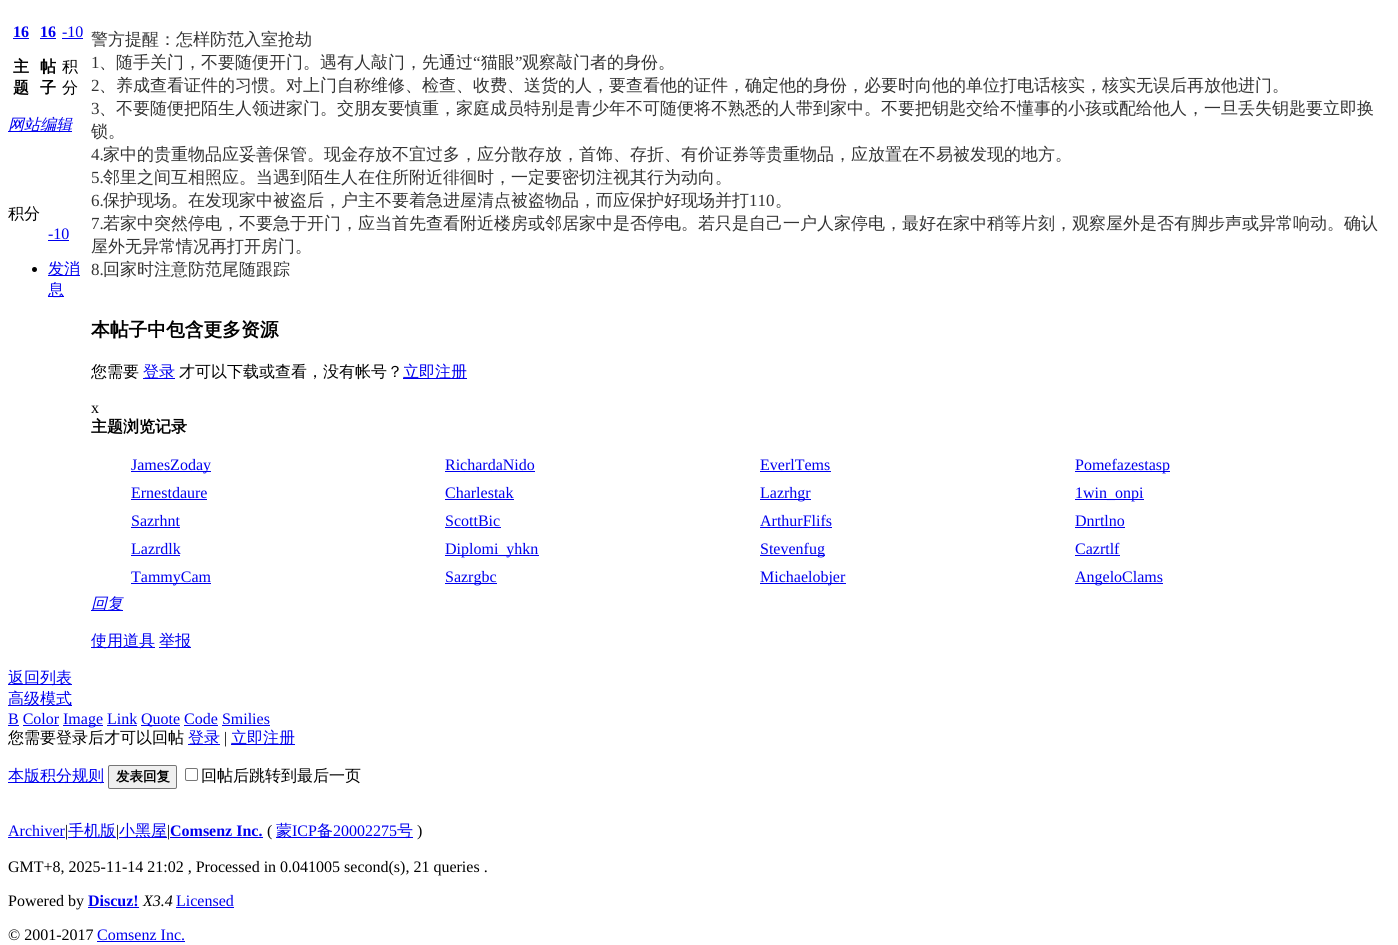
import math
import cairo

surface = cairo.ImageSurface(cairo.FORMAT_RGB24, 1398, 945)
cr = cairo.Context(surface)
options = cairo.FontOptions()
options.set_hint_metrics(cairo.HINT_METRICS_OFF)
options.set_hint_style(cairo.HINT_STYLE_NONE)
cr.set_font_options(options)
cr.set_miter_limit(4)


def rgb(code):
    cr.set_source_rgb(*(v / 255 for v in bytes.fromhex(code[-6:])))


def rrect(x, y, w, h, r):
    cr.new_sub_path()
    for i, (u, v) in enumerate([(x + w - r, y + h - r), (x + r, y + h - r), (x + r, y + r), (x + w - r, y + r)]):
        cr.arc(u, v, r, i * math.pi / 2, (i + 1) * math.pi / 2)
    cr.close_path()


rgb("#ffffff")
cr.paint()
for x, y, w, h, color in [
    (13, 38, 16, 1, "#0000ee"),
    (40, 38, 16, 1, "#0000ee"),
    (62, 38, 21, 1, "#0000ee"),
    (8, 131, 64, 1, "#0000ee"),
    (48, 240, 21, 1, "#0000ee"),
]:
    rgb(color)
    cr.rectangle(x, y, w, h)
    cr.fill()
rgb("#000000")
cr.arc(34.5, 269.5, 2.5, 0, 2 * math.pi)
cr.fill()
for x, y, w, h, color in [
    (48, 275, 32, 1, "#0000ee"),
    (48, 296, 16, 1, "#0000ee"),
    (143, 378, 32, 1, "#0000ee"),
    (403, 378, 64, 1, "#0000ee"),
    (131, 471, 80, 1, "#0000ee"),
    (445, 471, 90, 1, "#0000ee"),
    (760, 471, 71, 1, "#0000ee"),
    (1075, 471, 95, 1, "#0000ee"),
    (131, 499, 76, 1, "#0000ee"),
    (445, 499, 69, 1, "#0000ee"),
    (760, 499, 51, 1, "#0000ee"),
    (1075, 499, 69, 1, "#0000ee"),
    (131, 527, 49, 1, "#0000ee"),
    (445, 527, 56, 1, "#0000ee"),
    (760, 527, 72, 1, "#0000ee"),
    (1075, 527, 50, 1, "#0000ee"),
    (131, 555, 49, 1, "#0000ee"),
    (445, 555, 94, 1, "#0000ee"),
    (760, 555, 65, 1, "#0000ee"),
    (1075, 555, 45, 1, "#0000ee"),
    (131, 583, 80, 1, "#0000ee"),
    (445, 583, 52, 1, "#0000ee"),
    (760, 583, 86, 1, "#0000ee"),
    (1075, 583, 88, 1, "#0000ee"),
    (91, 610, 32, 1, "#0000ee"),
    (91, 647, 64, 1, "#0000ee"),
    (159, 647, 32, 1, "#0000ee"),
    (8, 684, 64, 1, "#0000ee"),
    (8, 705, 64, 1, "#0000ee"),
    (8, 725, 11, 1, "#0000ee"),
    (63, 725, 40, 1, "#0000ee"),
    (141, 725, 39, 1, "#0000ee"),
    (23, 725, 36, 1, "#0000ee"),
    (107, 725, 30, 1, "#0000ee"),
    (184, 725, 34, 1, "#0000ee"),
    (222, 725, 48, 1, "#0000ee"),
    (188, 744, 32, 1, "#0000ee"),
    (231, 744, 64, 1, "#0000ee"),
    (8, 782, 96, 1, "#0000ee"),
]:
    rgb(color)
    cr.rectangle(x, y, w, h)
    cr.fill()
rgb("#efefef")
rrect(108.5, 765.5, 68, 23, 1.5)
cr.fill_preserve()
rgb("#767676")
cr.set_line_width(1)
cr.stroke()
rrect(185.5, 768.5, 12, 12, 1.5)
cr.stroke()
for x, y, w, h, color in [
    (8, 837, 57, 1, "#0000ee"),
    (68, 837, 48, 1, "#0000ee"),
    (119, 837, 48, 1, "#0000ee"),
    (170, 837, 93, 1, "#0000ee"),
    (276, 837, 137, 1, "#0000ee"),
    (88, 907, 51, 1, "#0000ee"),
    (176, 907, 58, 1, "#0000ee"),
    (97, 941, 88, 1, "#0000ee"),
]:
    rgb(color)
    cr.rectangle(x, y, w, h)
    cr.fill()
cr.select_font_face("Liberation Serif", cairo.FONT_SLANT_NORMAL, cairo.FONT_WEIGHT_BOLD)
cr.set_font_size(16)
cr.move_to(13, 37)
cr.show_text("16")
cr.select_font_face("WenQuanYi Zen Hei", cairo.FONT_SLANT_NORMAL, cairo.FONT_WEIGHT_BOLD)
rgb("#000000")
cr.move_to(13, 72)
cr.show_text("主")
cr.move_to(13, 93)
cr.show_text("题")
cr.select_font_face("Liberation Serif", cairo.FONT_SLANT_NORMAL, cairo.FONT_WEIGHT_BOLD)
rgb("#0000ee")
cr.move_to(40, 37)
cr.show_text("16")
cr.select_font_face("WenQuanYi Zen Hei", cairo.FONT_SLANT_NORMAL, cairo.FONT_WEIGHT_BOLD)
rgb("#000000")
cr.move_to(40, 72)
cr.show_text("帖")
cr.move_to(40, 93)
cr.show_text("子")
cr.select_font_face("Liberation Serif")
rgb("#0000ee")
cr.move_to(62, 37)
cr.show_text("-10")
cr.select_font_face("WenQuanYi Zen Hei Medium")
rgb("#000000")
cr.move_to(62, 72)
cr.show_text("积")
cr.move_to(62, 93)
cr.show_text("分")
cr.select_font_face("WenQuanYi Zen Hei Medium", cairo.FONT_SLANT_ITALIC)
rgb("#0000ee")
cr.move_to(8, 130)
cr.show_text("网站编辑")
cr.select_font_face("WenQuanYi Zen Hei Medium")
rgb("#000000")
cr.move_to(8, 219)
cr.show_text("积分")
cr.select_font_face("Liberation Serif")
rgb("#0000ee")
cr.move_to(48, 239)
cr.show_text("-10")
cr.select_font_face("WenQuanYi Zen Hei Medium")
cr.move_to(48, 274)
cr.show_text("发消")
cr.move_to(48, 295)
cr.show_text("息")
cr.set_font_size(17)
rgb("#333333")
cr.move_to(91, 45)
cr.show_text("警方提醒：怎样防范入室抢劫")
cr.select_font_face("Liberation Serif")
cr.move_to(91, 68)
cr.show_text("1")
cr.select_font_face("WenQuanYi Zen Hei Medium")
cr.move_to(99, 68)
cr.show_text("、随手关门，不要随便开门。遇有人敲门，先通过")
cr.select_font_face("Liberation Serif")
cr.move_to(473, 68)
cr.show_text("“")
cr.select_font_face("WenQuanYi Zen Hei Medium")
cr.move_to(481, 68)
cr.show_text("猫眼")
cr.select_font_face("Liberation Serif")
cr.move_to(515, 68)
cr.show_text("”")
cr.select_font_face("WenQuanYi Zen Hei Medium")
cr.move_to(522, 68)
cr.show_text("观察敲门者的身份。")
cr.select_font_face("Liberation Serif")
cr.move_to(91, 91)
cr.show_text("2")
cr.select_font_face("WenQuanYi Zen Hei Medium")
cr.move_to(99, 91)
cr.show_text("、养成查看证件的习惯。对上门自称维修、检查、收费、送货的人，要查看他的证件，确定他的身份，必要时向他的单位打电话核实，核实无误后再放他进门。")
cr.select_font_face("Liberation Serif")
cr.move_to(91, 114)
cr.show_text("3")
cr.select_font_face("WenQuanYi Zen Hei Medium")
cr.move_to(99, 114)
cr.show_text("、不要随便把陌生人领进家门。交朋友要慎重，家庭成员特别是青少年不可随便将不熟悉的人带到家中。不要把钥匙交给不懂事的小孩或配给他人，一旦丢失钥匙要立即换")
cr.move_to(91, 137)
cr.show_text("锁。")
cr.select_font_face("Liberation Serif")
cr.move_to(91, 160)
cr.show_text("4.")
cr.select_font_face("WenQuanYi Zen Hei Medium")
cr.move_to(103, 160)
cr.show_text("家中的贵重物品应妥善保管。现金存放不宜过多，应分散存放，首饰、存折、有价证券等贵重物品，应放置在不易被发现的地方。")
cr.select_font_face("Liberation Serif")
cr.move_to(91, 183)
cr.show_text("5.")
cr.select_font_face("WenQuanYi Zen Hei Medium")
cr.move_to(103, 183)
cr.show_text("邻里之间互相照应。当遇到陌生人在住所附近徘徊时，一定要密切注视其行为动向。")
cr.select_font_face("Liberation Serif")
cr.move_to(91, 206)
cr.show_text("6.")
cr.select_font_face("WenQuanYi Zen Hei Medium")
cr.move_to(103, 206)
cr.show_text("保护现场。在发现家中被盗后，户主不要着急进屋清点被盗物品，而应保护好现场并打")
cr.select_font_face("Liberation Serif")
cr.move_to(749, 206)
cr.show_text("110")
cr.select_font_face("WenQuanYi Zen Hei Medium")
cr.move_to(775, 206)
cr.show_text("。")
cr.select_font_face("Liberation Serif")
cr.move_to(91, 229)
cr.show_text("7.")
cr.select_font_face("WenQuanYi Zen Hei Medium")
cr.move_to(103, 229)
cr.show_text("若家中突然停电，不要急于开门，应当首先查看附近楼房或邻居家中是否停电。若只是自己一户人家停电，最好在家中稍等片刻，观察屋外是否有脚步声或异常响动。确认")
cr.move_to(91, 252)
cr.show_text("屋外无异常情况再打开房门。")
cr.select_font_face("Liberation Serif")
cr.move_to(91, 275)
cr.show_text("8.")
cr.select_font_face("WenQuanYi Zen Hei Medium")
cr.move_to(103, 275)
cr.show_text("回家时注意防范尾随跟踪")
cr.select_font_face("WenQuanYi Zen Hei", cairo.FONT_SLANT_NORMAL, cairo.FONT_WEIGHT_BOLD)
cr.set_font_size(18.75)
rgb("#000000")
cr.move_to(91, 336)
cr.show_text("本帖子中包含更多资源")
cr.select_font_face("WenQuanYi Zen Hei Medium")
cr.set_font_size(16)
cr.move_to(91, 377)
cr.show_text("您需要")
rgb("#0000ee")
cr.move_to(143, 377)
cr.show_text("登录")
rgb("#000000")
cr.move_to(179, 377)
cr.show_text("才可以下载或查看，没有帐号？")
rgb("#0000ee")
cr.move_to(403, 377)
cr.show_text("立即注册")
cr.select_font_face("Liberation Serif")
rgb("#000000")
cr.move_to(91, 413)
cr.show_text("x")
cr.select_font_face("WenQuanYi Zen Hei", cairo.FONT_SLANT_NORMAL, cairo.FONT_WEIGHT_BOLD)
cr.move_to(91, 432)
cr.show_text("主题浏览记录")
cr.select_font_face("Liberation Serif")
rgb("#0000ee")
for x, y, s in [
    (131, 470, "JamesZoday"),
    (445, 470, "RichardaNido"),
    (760, 470, "EverlTems"),
    (1075, 470, "Pomefazestasp"),
    (131, 498, "Ernestdaure"),
    (445, 498, "Charlestak"),
    (760, 498, "Lazrhgr"),
    (1075, 498, "1win_onpi"),
    (131, 526, "Sazrhnt"),
    (445, 526, "ScottBic"),
    (760, 526, "ArthurFlifs"),
    (1075, 526, "Dnrtlno"),
    (131, 554, "Lazrdlk"),
    (445, 554, "Diplomi_yhkn"),
    (760, 554, "Stevenfug"),
    (1075, 554, "Cazrtlf"),
    (131, 582, "TammyCam"),
    (445, 582, "Sazrgbc"),
    (760, 582, "Michaelobjer"),
    (1075, 582, "AngeloClams"),
]:
    cr.move_to(x, y)
    cr.show_text(s)
cr.select_font_face("WenQuanYi Zen Hei Medium", cairo.FONT_SLANT_ITALIC)
cr.move_to(91, 609)
cr.show_text("回复")
cr.select_font_face("WenQuanYi Zen Hei Medium")
for x, y, s in [
    (91, 646, "使用道具"),
    (159, 646, "举报"),
    (8, 683, "返回列表"),
    (8, 704, "高级模式"),
]:
    cr.move_to(x, y)
    cr.show_text(s)
cr.select_font_face("Liberation Serif")
for x, y, s in [
    (8, 724, "B Color"),
    (63, 724, "Image Link"),
    (141, 724, "Quote Code Smilies"),
]:
    cr.move_to(x, y)
    cr.show_text(s)
cr.select_font_face("WenQuanYi Zen Hei Medium")
rgb("#000000")
cr.move_to(8, 743)
cr.show_text("您需要登录后才可以回帖")
rgb("#0000ee")
cr.move_to(188, 743)
cr.show_text("登录")
cr.select_font_face("Liberation Serif")
rgb("#000000")
cr.move_to(224, 743)
cr.show_text("|")
cr.select_font_face("WenQuanYi Zen Hei Medium")
rgb("#0000ee")
cr.move_to(231, 743)
cr.show_text("立即注册")
cr.move_to(8, 781)
cr.show_text("本版积分规则")
cr.select_font_face("WenQuanYi Zen Hei", cairo.FONT_SLANT_NORMAL, cairo.FONT_WEIGHT_BOLD)
cr.set_font_size(13.5)
rgb("#000000")
cr.move_to(116, 781)
cr.show_text("发表回复")
cr.select_font_face("WenQuanYi Zen Hei Medium")
cr.set_font_size(16)
cr.move_to(201, 781)
cr.show_text("回帖后跳转到最后一页")
cr.select_font_face("Liberation Serif")
rgb("#0000ee")
cr.move_to(8, 836)
cr.show_text("Archiver")
rgb("#000000")
cr.move_to(65, 836)
cr.show_text("|")
cr.select_font_face("WenQuanYi Zen Hei Medium")
rgb("#0000ee")
cr.move_to(68, 836)
cr.show_text("手机版")
cr.select_font_face("Liberation Serif")
rgb("#000000")
cr.move_to(116, 836)
cr.show_text("|")
cr.select_font_face("WenQuanYi Zen Hei Medium")
rgb("#0000ee")
cr.move_to(119, 836)
cr.show_text("小黑屋")
cr.select_font_face("Liberation Serif")
rgb("#000000")
cr.move_to(167, 836)
cr.show_text("|")
cr.select_font_face("Liberation Serif", cairo.FONT_SLANT_NORMAL, cairo.FONT_WEIGHT_BOLD)
rgb("#0000ee")
cr.move_to(170, 836)
cr.show_text("Comsenz Inc.")
cr.select_font_face("Liberation Serif")
rgb("#000000")
cr.move_to(267, 836)
cr.show_text("(")
cr.select_font_face("WenQuanYi Zen Hei Medium")
rgb("#0000ee")
cr.move_to(276, 836)
cr.show_text("蒙")
cr.select_font_face("Liberation Serif")
cr.move_to(292, 836)
cr.show_text("ICP")
cr.select_font_face("WenQuanYi Zen Hei Medium")
cr.move_to(317, 836)
cr.show_text("备")
cr.select_font_face("Liberation Serif")
cr.move_to(333, 836)
cr.show_text("20002275")
cr.select_font_face("WenQuanYi Zen Hei Medium")
cr.move_to(397, 836)
cr.show_text("号")
cr.select_font_face("Liberation Serif")
rgb("#000000")
for x, y, s in [
    (417, 836, ")"),
    (8, 872, "GMT+8, 2025-11-14 21:02 , Processed in 0.041005 second(s), 21 queries ."),
    (8, 906, "Powered by"),
]:
    cr.move_to(x, y)
    cr.show_text(s)
cr.select_font_face("Liberation Serif", cairo.FONT_SLANT_NORMAL, cairo.FONT_WEIGHT_BOLD)
rgb("#0000ee")
cr.move_to(88, 906)
cr.show_text("Discuz!")
cr.select_font_face("Liberation Serif", cairo.FONT_SLANT_ITALIC)
rgb("#000000")
cr.move_to(143, 906)
cr.show_text("X3.4")
cr.select_font_face("Liberation Serif")
rgb("#0000ee")
cr.move_to(176, 906)
cr.show_text("Licensed")
rgb("#000000")
cr.move_to(8, 940)
cr.show_text("© 2001-2017")
rgb("#0000ee")
cr.move_to(97, 940)
cr.show_text("Comsenz Inc.")
surface.write_to_png("page.png")
